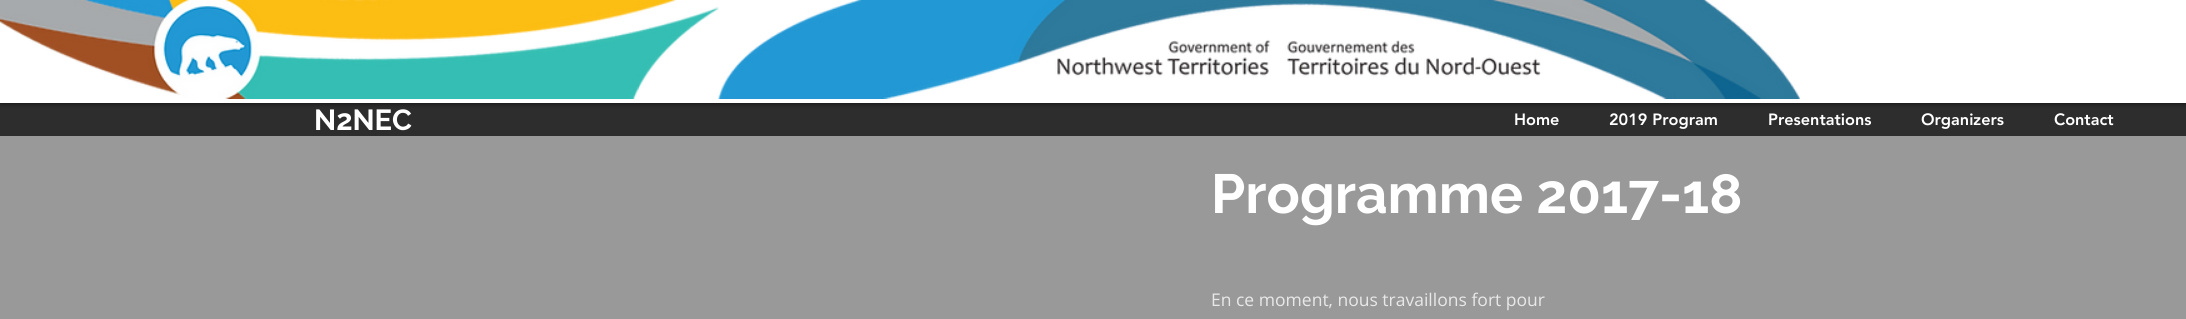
import math
import cairo

surface = cairo.ImageSurface(cairo.FORMAT_RGB24, 2186, 319)
cr = cairo.Context(surface)
options = cairo.FontOptions()
options.set_hint_metrics(cairo.HINT_METRICS_OFF)
options.set_hint_style(cairo.HINT_STYLE_NONE)
cr.set_font_options(options)
cr.set_miter_limit(4)


def rgb(code):
    cr.set_source_rgb(*(v / 255 for v in bytes.fromhex(code[-6:])))


def rrect(x, y, w, h, r):
    cr.new_sub_path()
    for i, (u, v) in enumerate([(x + w - r, y + h - r), (x + r, y + h - r), (x + r, y + r), (x + w - r, y + r)]):
        cr.arc(u, v, r, i * math.pi / 2, (i + 1) * math.pi / 2)
    cr.close_path()


def soft_shadow(x, y, w, h, r, blur, alpha):
    cr.push_group_with_content(cairo.CONTENT_ALPHA)
    cr.set_operator(cairo.OPERATOR_SOURCE)
    for i in range(15, -16, -2):
        e = blur * i / 6
        if min(w, h) + 2 * e > 0:
            cr.set_source_rgba(0, 0, 0, alpha * math.erfc((i - 1) / 8.5) / 2)
            rrect(x - e, y - e, w + 2 * e, h + 2 * e, max(0, min(r + e + blur * .6, min(w, h) / 2 + e)))
            cr.fill()
    cr.mask(cr.pop_group())


def image(path, x, y, w, h):
    cr.save()
    cr.set_source_surface(cairo.ImageSurface.create_from_png(path), x, y)
    cr.rectangle(x, y, w, h)
    cr.fill()
    cr.restore()


rgb("#999999")
cr.paint()
rgb("#2d2d2d")
cr.rectangle(0, 103, 2186, 33)
cr.fill()
rgb("#000000")
soft_shadow(0, 0, 2186, 103, 0, 3, 0.7)
rgb("#ffffff")
cr.rectangle(0, 0, 2186, 103)
cr.fill()
image("img/1.png", 0, 0, 1800, 99)
cr.select_font_face("Raleway", cairo.FONT_SLANT_NORMAL, cairo.FONT_WEIGHT_BOLD)
cr.set_font_size(29)
cr.move_to(314, 130)
cr.show_text("N2NEC")
cr.select_font_face("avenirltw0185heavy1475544 Black")
cr.set_font_size(16.25)
for x, y, s in [
    (1514, 125, "Home"),
    (1609, 125, "2019 Program"),
    (1768, 125, "Presentations"),
    (1921, 125, "Organizers"),
    (2054, 125, "Contact"),
]:
    cr.move_to(x, y)
    cr.show_text(s)
cr.select_font_face("Raleway", cairo.FONT_SLANT_NORMAL, cairo.FONT_WEIGHT_BOLD)
cr.set_font_size(55)
cr.move_to(1211, 213)
cr.show_text("Programme 2017-18")
cr.select_font_face("Open Sans")
cr.set_font_size(17.5)
rgb("#e8e8e8")
cr.move_to(1211, 306)
cr.show_text("En ce moment, nous travaillons fort pour")
surface.write_to_png("page.png")
